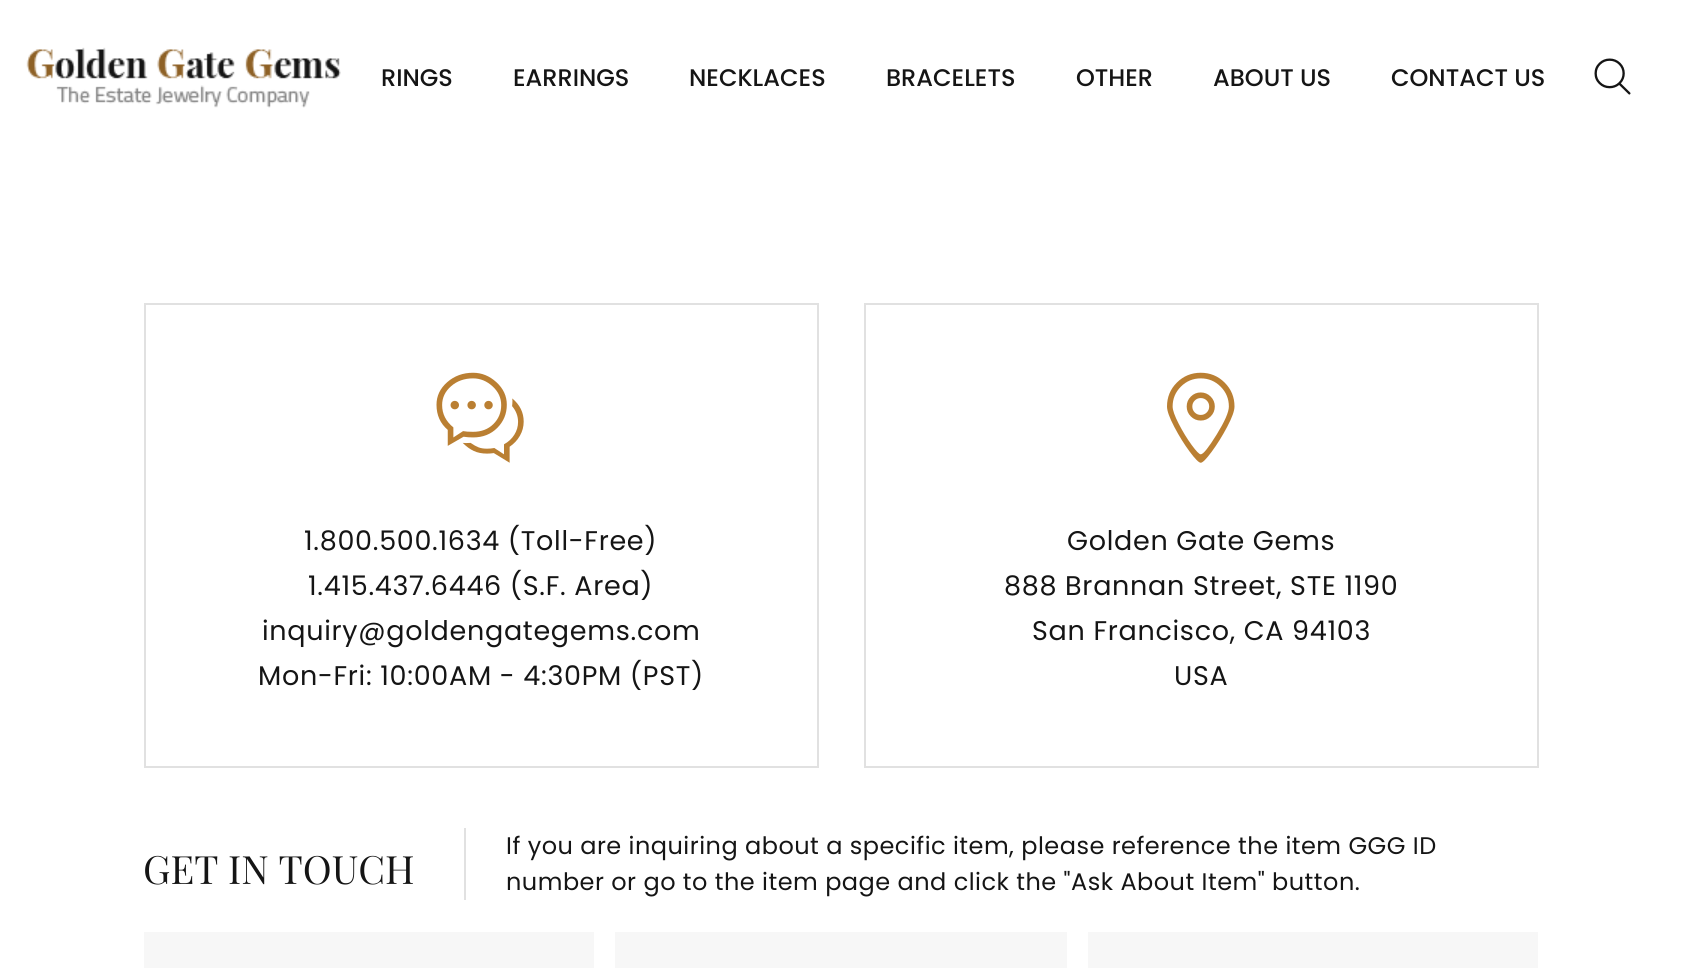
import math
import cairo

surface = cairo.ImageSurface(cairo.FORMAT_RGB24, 1681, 968)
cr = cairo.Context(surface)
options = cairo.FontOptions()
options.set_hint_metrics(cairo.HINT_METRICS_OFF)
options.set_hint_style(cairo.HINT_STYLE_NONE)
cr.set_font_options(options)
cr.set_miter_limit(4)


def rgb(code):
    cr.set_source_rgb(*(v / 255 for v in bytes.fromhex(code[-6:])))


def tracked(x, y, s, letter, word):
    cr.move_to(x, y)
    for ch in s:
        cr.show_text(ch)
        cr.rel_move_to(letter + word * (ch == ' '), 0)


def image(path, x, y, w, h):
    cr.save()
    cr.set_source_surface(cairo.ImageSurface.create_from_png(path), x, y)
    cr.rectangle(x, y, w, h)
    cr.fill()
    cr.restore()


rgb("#ffffff")
cr.paint()
image("img/1.png", 26, 47, 315, 61)
image("img/2.png", 1594, 58, 37, 37)
cr.rectangle(145, 304, 673, 463)
rgb("#e1e1e1")
cr.stroke()
image("img/3.png", 436, 372, 88, 91)
cr.rectangle(865, 304, 673, 463)
cr.stroke()
image("img/4.png", 1167, 372, 68, 91)
for x, y, w, h, color in [
    (464, 828, 2, 72, "#e1e1e1"),
    (144, 932, 450, 36, "#f7f7f7"),
    (615, 932, 452, 36, "#f7f7f7"),
    (1088, 932, 450, 36, "#f7f7f7"),
]:
    rgb(color)
    cr.rectangle(x, y, w, h)
    cr.fill()
cr.select_font_face("Poppins Medium")
cr.set_font_size(24)
rgb("#151515")
for x, y, s in [
    (381, 86, "RINGS"),
    (513, 86, "EARRINGS"),
    (689, 86, "NECKLACES"),
    (886, 86, "BRACELETS"),
    (1076, 86, "OTHER"),
    (1213, 86, "ABOUT US"),
    (1391, 86, "CONTACT US"),
]:
    cr.move_to(x, y)
    cr.show_text(s)
cr.select_font_face("Poppins")
cr.set_font_size(27)
for x, y, s in [
    (304, 550, "1.800.500.1634 (Toll-Free)"),
    (308, 595, "1.415.437.6446 (S.F. Area)"),
    (262, 640, "inquiry@goldengategems.com"),
    (258, 685, "Mon-Fri: 10:00AM - 4:30PM (PST)"),
    (1067, 550, "Golden Gate Gems"),
    (1004, 595, "888 Brannan Street, STE 1190"),
    (1032, 640, "San Francisco, CA 94103"),
    (1174, 685, "USA"),
]:
    tracked(x, y, s, 0.7, 0)
cr.select_font_face("Playfair Display")
cr.set_font_size(39)
cr.move_to(143, 884)
cr.show_text("GET IN TOUCH")
cr.select_font_face("Poppins")
cr.set_font_size(24)
tracked(506, 854, "If you are inquiring about a specific item, please reference the item GGG ID", 0.48, 0)
tracked(506, 890, "number or go to the item page and click the \"Ask About Item\" button.", 0.48, 0)
surface.write_to_png("page.png")
